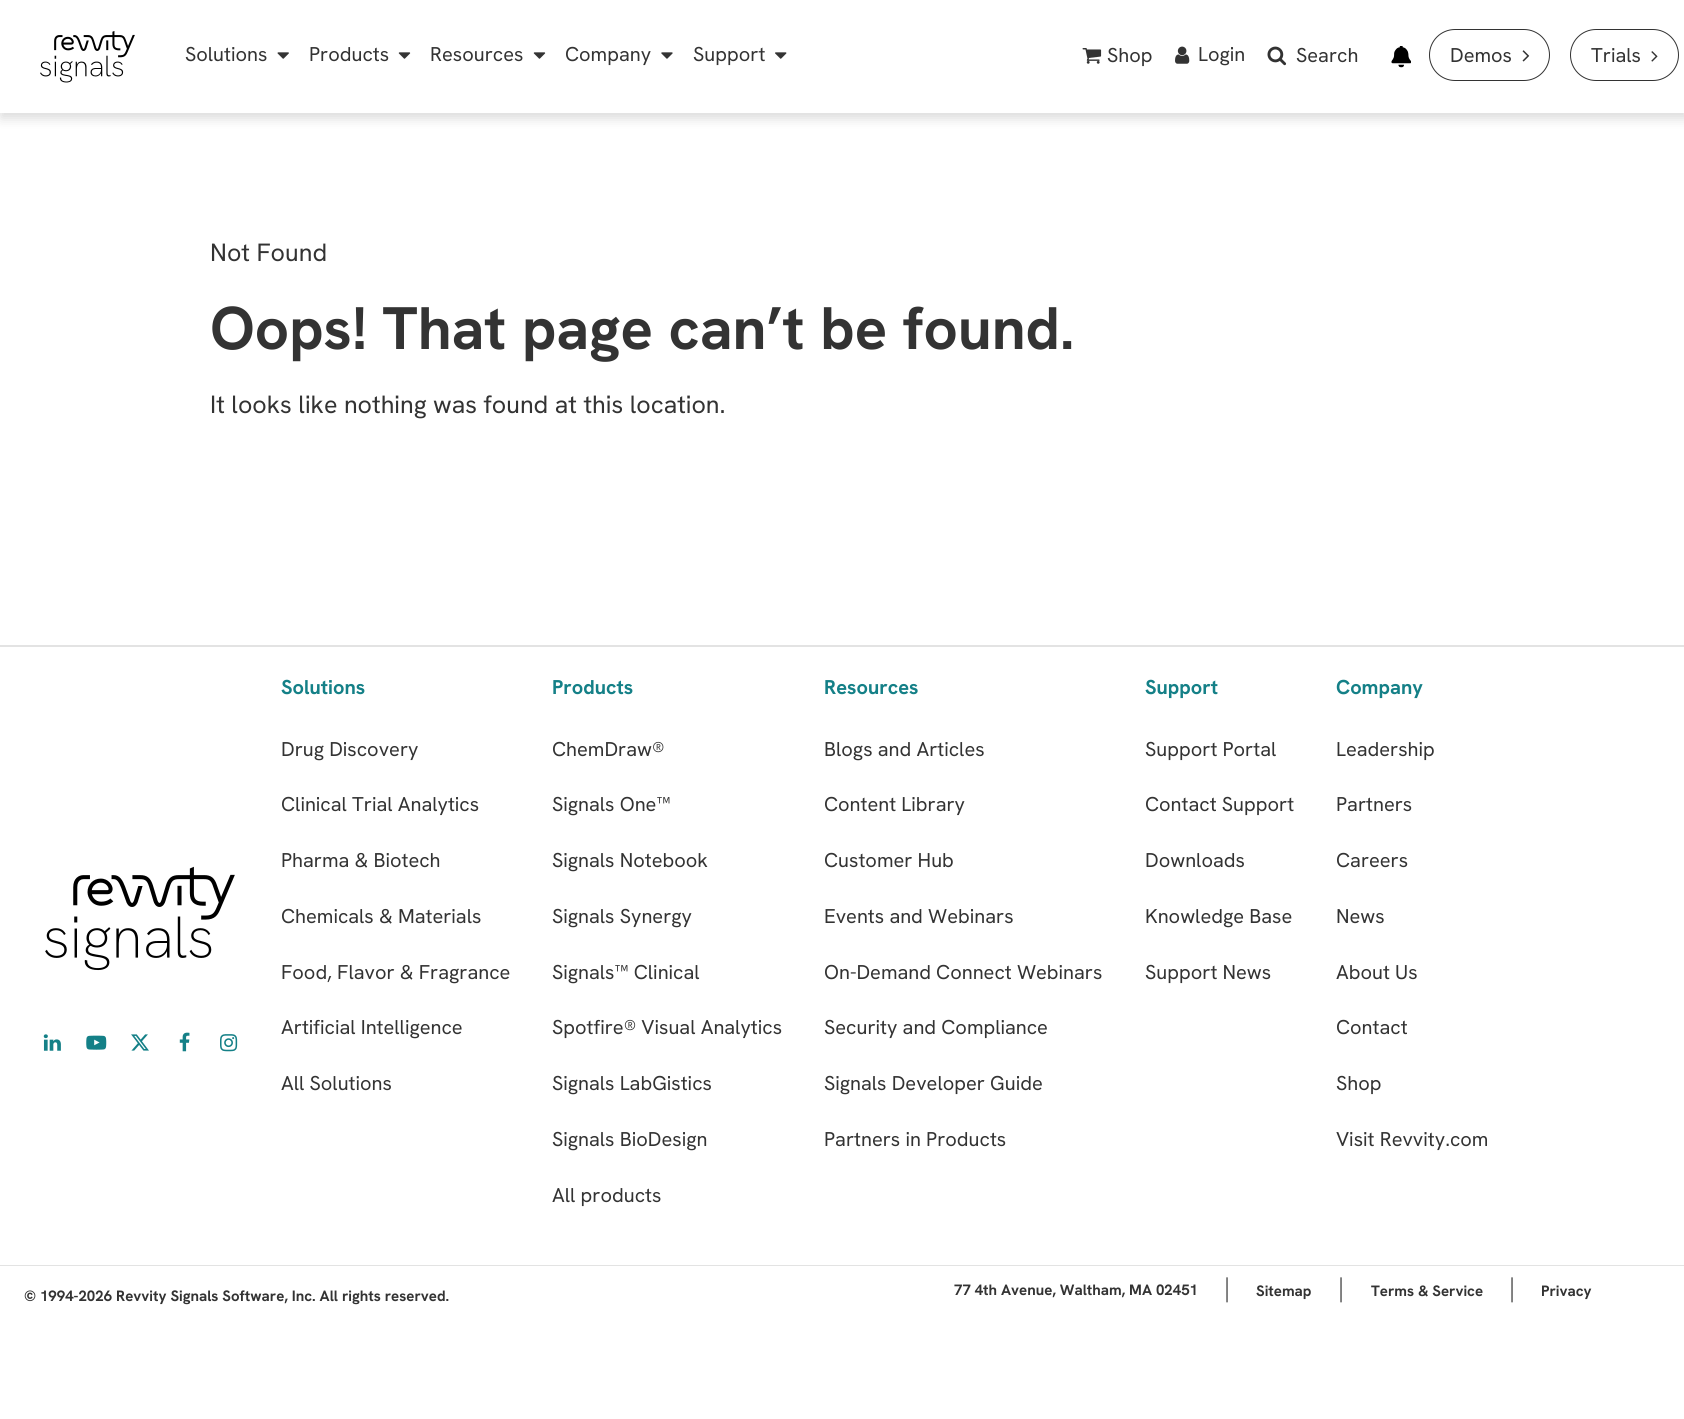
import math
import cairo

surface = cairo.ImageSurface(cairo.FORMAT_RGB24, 1684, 1419)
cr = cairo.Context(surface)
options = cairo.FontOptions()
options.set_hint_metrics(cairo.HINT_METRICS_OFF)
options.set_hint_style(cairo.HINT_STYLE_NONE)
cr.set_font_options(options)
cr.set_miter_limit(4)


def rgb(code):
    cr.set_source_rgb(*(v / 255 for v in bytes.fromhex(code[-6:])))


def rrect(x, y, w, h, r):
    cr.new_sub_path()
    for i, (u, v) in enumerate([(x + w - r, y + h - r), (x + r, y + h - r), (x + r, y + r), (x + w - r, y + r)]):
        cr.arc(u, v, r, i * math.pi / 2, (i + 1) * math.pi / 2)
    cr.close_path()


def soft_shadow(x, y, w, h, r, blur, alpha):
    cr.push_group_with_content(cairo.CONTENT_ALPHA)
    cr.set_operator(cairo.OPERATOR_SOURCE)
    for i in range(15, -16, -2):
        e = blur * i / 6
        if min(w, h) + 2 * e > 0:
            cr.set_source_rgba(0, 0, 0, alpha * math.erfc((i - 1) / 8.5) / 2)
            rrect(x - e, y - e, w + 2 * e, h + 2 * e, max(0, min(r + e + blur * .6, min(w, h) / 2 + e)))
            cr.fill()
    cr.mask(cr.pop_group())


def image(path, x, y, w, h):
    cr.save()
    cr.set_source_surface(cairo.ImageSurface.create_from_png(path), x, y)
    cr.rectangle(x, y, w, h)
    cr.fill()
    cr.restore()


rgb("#ffffff")
cr.paint()
rgb("#000000")
soft_shadow(1, 5, 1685, 113, 0, 6, 0.15)
rgb("#ffffff")
cr.rectangle(0, 0, 1684, 113)
cr.fill()
image("img/1.png", 40, 31, 95, 52)
image("img/2.png", 277, 52, 12, 7)
image("img/3.png", 398, 52, 13, 7)
image("img/3.png", 533, 52, 13, 7)
image("img/4.png", 661, 52, 12, 7)
image("img/5.png", 775, 52, 12, 7)
image("img/6.png", 1082, 48, 20, 16)
image("img/7.png", 1175, 46, 15, 18)
image("img/8.png", 1267, 46, 20, 20)
image("img/9.png", 1391, 46, 20, 22)
rrect(1429.5, 29.5, 120, 51, 25.5)
rgb("#333333")
cr.set_line_width(1)
cr.stroke()
image("img/10.png", 1522, 50, 8, 12)
rrect(1570.5, 29.5, 108, 51, 25.5)
cr.stroke()
image("img/11.png", 1651, 51, 7, 11)
rgb("#e3e3e3")
cr.rectangle(0, 645, 1684, 2)
cr.fill()
image("img/12.png", 45, 866, 190, 105)
image("img/13.png", 43, 1034, 18, 17)
image("img/14.png", 86, 1035, 21, 15)
image("img/15.png", 131, 1034, 18, 17)
image("img/16.png", 179, 1032, 11, 20)
image("img/17.png", 220, 1034, 18, 18)
cr.rectangle(0, 1265, 1684, 1)
cr.fill()
cr.select_font_face("Hanken Grotesk")
cr.set_font_size(20)
rgb("#333333")
for x, y, s in [
    (185, 61, "Solutions"),
    (309, 61, "Products"),
    (430, 61, "Resources"),
    (565, 61, "Company"),
    (693, 61, "Support"),
    (1107, 62, "Shop"),
    (1198, 61, "Login"),
    (1296, 62, "Search"),
    (1450, 62, "Demos"),
    (1591, 62, "Trials"),
]:
    cr.move_to(x, y)
    cr.show_text(s)
cr.set_font_size(25)
cr.move_to(210, 261)
cr.show_text("Not Found")
cr.select_font_face("Hanken Grotesk", cairo.FONT_SLANT_NORMAL, cairo.FONT_WEIGHT_BOLD)
cr.set_font_size(60)
cr.move_to(210, 349)
cr.show_text("Oops! That page can’t be found.")
cr.select_font_face("Hanken Grotesk")
cr.set_font_size(25)
cr.move_to(210, 413)
cr.show_text("It looks like nothing was found at this location.")
cr.select_font_face("Hanken Grotesk", cairo.FONT_SLANT_NORMAL, cairo.FONT_WEIGHT_BOLD)
cr.set_font_size(20)
rgb("#148087")
cr.move_to(281, 694)
cr.show_text("Solutions")
cr.select_font_face("Hanken Grotesk")
rgb("#333333")
for x, y, s in [
    (281, 756, "Drug Discovery"),
    (281, 811, "Clinical Trial Analytics"),
    (281, 867, "Pharma & Biotech"),
    (281, 923, "Chemicals & Materials"),
    (281, 979, "Food, Flavor & Fragrance"),
    (281, 1034, "Artificial Intelligence"),
    (281, 1090, "All Solutions"),
]:
    cr.move_to(x, y)
    cr.show_text(s)
cr.select_font_face("Hanken Grotesk", cairo.FONT_SLANT_NORMAL, cairo.FONT_WEIGHT_BOLD)
rgb("#148087")
cr.move_to(552, 694)
cr.show_text("Products")
cr.select_font_face("Hanken Grotesk")
rgb("#333333")
for x, y, s in [
    (552, 756, "ChemDraw®"),
    (552, 811, "Signals One™"),
    (552, 867, "Signals Notebook"),
    (552, 923, "Signals Synergy"),
    (552, 979, "Signals™ Clinical"),
    (552, 1034, "Spotfire® Visual Analytics"),
    (552, 1090, "Signals LabGistics"),
    (552, 1146, "Signals BioDesign"),
    (552, 1202, "All products"),
]:
    cr.move_to(x, y)
    cr.show_text(s)
cr.select_font_face("Hanken Grotesk", cairo.FONT_SLANT_NORMAL, cairo.FONT_WEIGHT_BOLD)
rgb("#148087")
cr.move_to(824, 694)
cr.show_text("Resources")
cr.select_font_face("Hanken Grotesk")
rgb("#333333")
for x, y, s in [
    (824, 756, "Blogs and Articles"),
    (824, 811, "Content Library"),
    (824, 867, "Customer Hub"),
    (824, 923, "Events and Webinars"),
    (824, 979, "On-Demand Connect Webinars"),
    (824, 1034, "Security and Compliance"),
    (824, 1090, "Signals Developer Guide"),
    (824, 1146, "Partners in Products"),
]:
    cr.move_to(x, y)
    cr.show_text(s)
cr.select_font_face("Hanken Grotesk", cairo.FONT_SLANT_NORMAL, cairo.FONT_WEIGHT_BOLD)
rgb("#148087")
cr.move_to(1145, 694)
cr.show_text("Support")
cr.select_font_face("Hanken Grotesk")
rgb("#333333")
for x, y, s in [
    (1145, 756, "Support Portal"),
    (1145, 811, "Contact Support"),
    (1145, 867, "Downloads"),
    (1145, 923, "Knowledge Base"),
    (1145, 979, "Support News"),
]:
    cr.move_to(x, y)
    cr.show_text(s)
cr.select_font_face("Hanken Grotesk", cairo.FONT_SLANT_NORMAL, cairo.FONT_WEIGHT_BOLD)
rgb("#148087")
cr.move_to(1336, 694)
cr.show_text("Company")
cr.select_font_face("Hanken Grotesk")
rgb("#333333")
for x, y, s in [
    (1336, 756, "Leadership"),
    (1336, 811, "Partners"),
    (1336, 867, "Careers"),
    (1336, 923, "News"),
    (1336, 979, "About Us"),
    (1336, 1034, "Contact"),
    (1336, 1090, "Shop"),
    (1336, 1146, "Visit Revvity.com"),
]:
    cr.move_to(x, y)
    cr.show_text(s)
cr.select_font_face("Hanken Grotesk", cairo.FONT_SLANT_NORMAL, cairo.FONT_WEIGHT_BOLD)
cr.set_font_size(15)
cr.move_to(24, 1301)
cr.show_text("© 1994-2026 Revvity Signals Software, Inc. All rights reserved.")
cr.move_to(954, 1295)
cr.show_text("77 4th Avenue, Waltham, MA 02451")
cr.select_font_face("Hanken Grotesk Light")
cr.set_font_size(25)
cr.move_to(1224, 1296)
cr.show_text("|")
cr.select_font_face("Hanken Grotesk", cairo.FONT_SLANT_NORMAL, cairo.FONT_WEIGHT_BOLD)
cr.set_font_size(15)
cr.move_to(1256, 1296)
cr.show_text("Sitemap")
cr.select_font_face("Hanken Grotesk Light")
cr.set_font_size(25)
cr.move_to(1338, 1296)
cr.show_text("|")
cr.select_font_face("Hanken Grotesk", cairo.FONT_SLANT_NORMAL, cairo.FONT_WEIGHT_BOLD)
cr.set_font_size(15)
cr.move_to(1371, 1296)
cr.show_text("Terms & Service")
cr.select_font_face("Hanken Grotesk Light")
cr.set_font_size(25)
cr.move_to(1509, 1296)
cr.show_text("|")
cr.select_font_face("Hanken Grotesk", cairo.FONT_SLANT_NORMAL, cairo.FONT_WEIGHT_BOLD)
cr.set_font_size(15)
cr.move_to(1541, 1296)
cr.show_text("Privacy")
surface.write_to_png("page.png")
